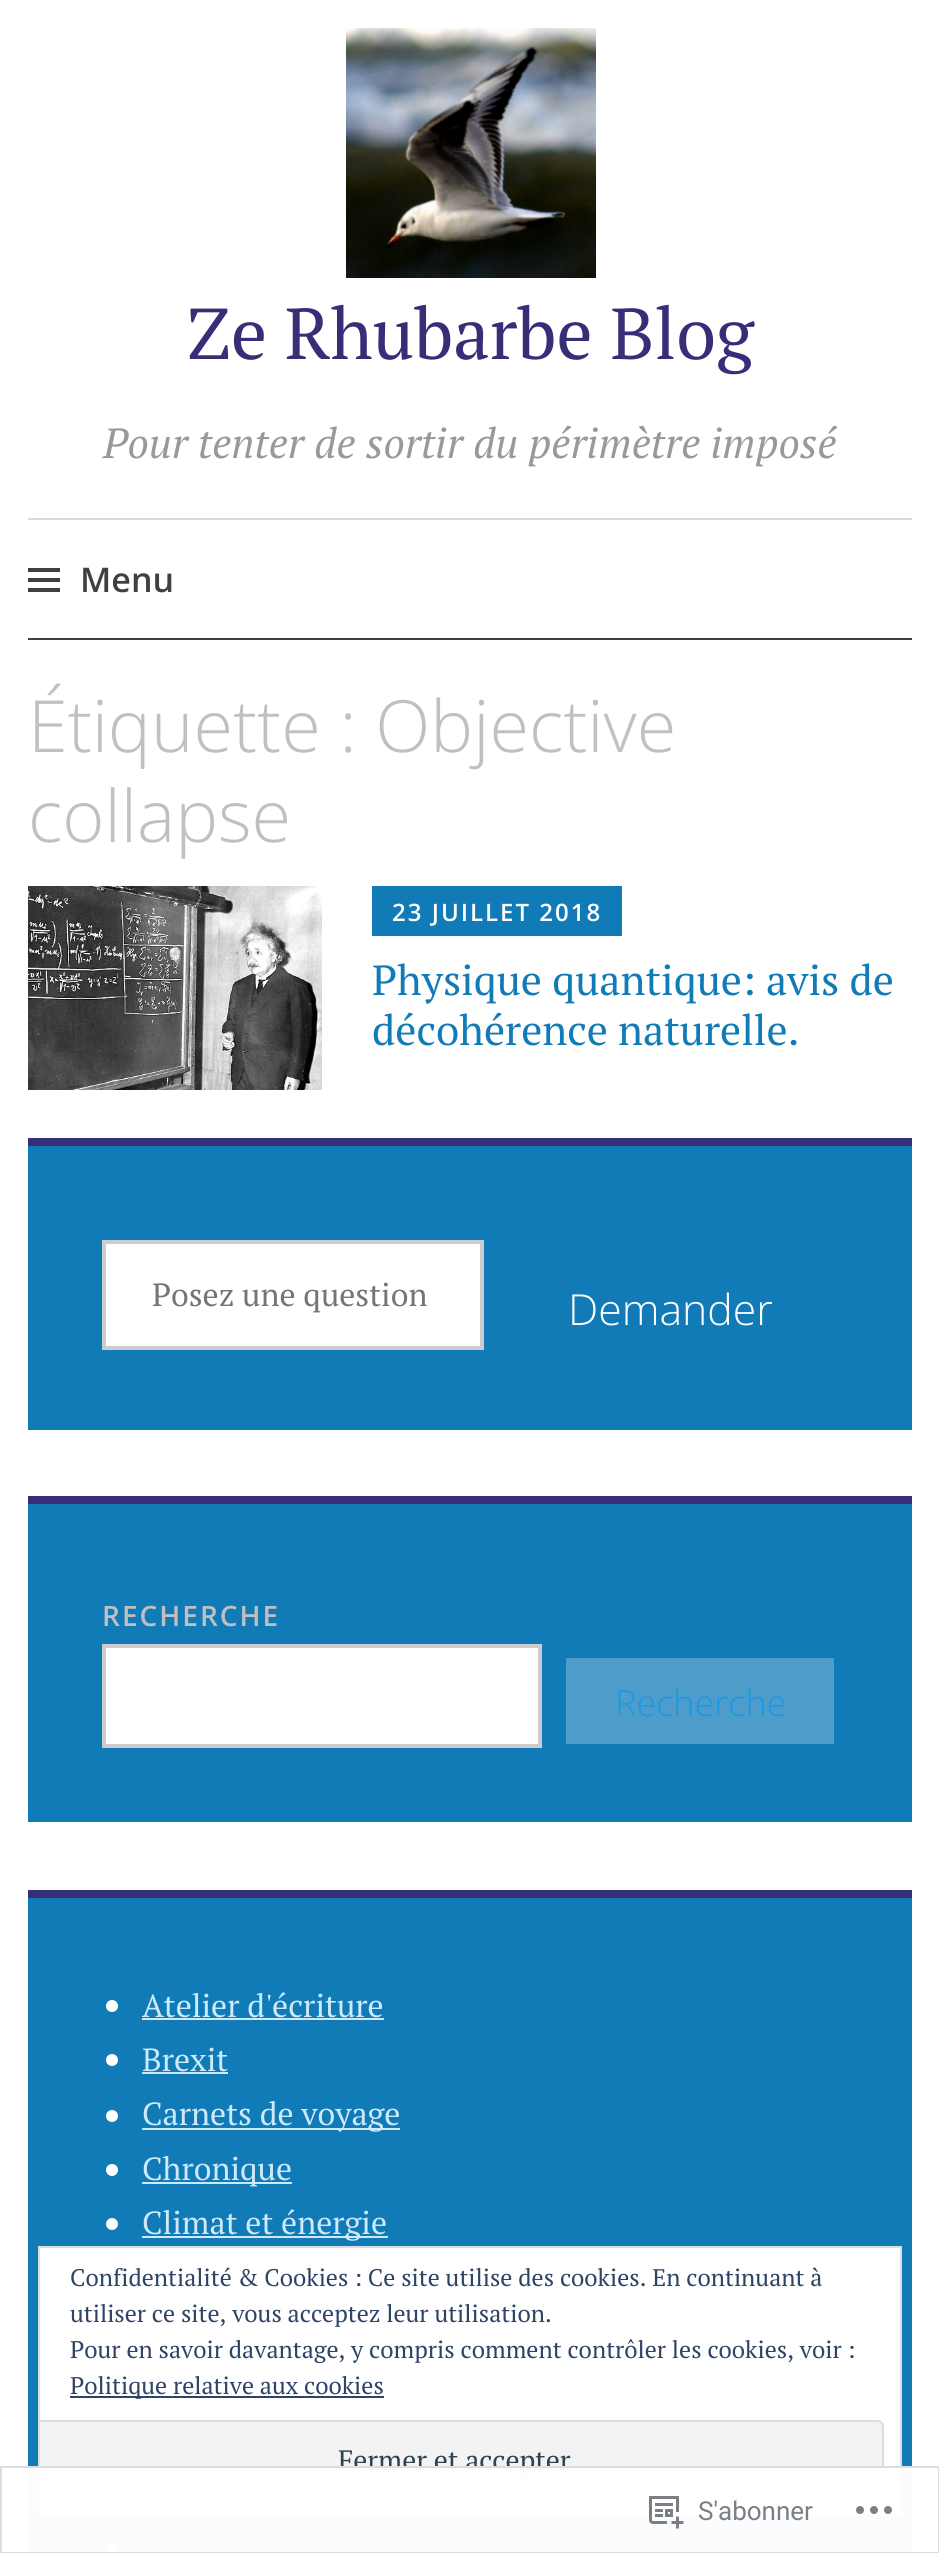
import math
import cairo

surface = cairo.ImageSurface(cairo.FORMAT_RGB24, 939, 2553)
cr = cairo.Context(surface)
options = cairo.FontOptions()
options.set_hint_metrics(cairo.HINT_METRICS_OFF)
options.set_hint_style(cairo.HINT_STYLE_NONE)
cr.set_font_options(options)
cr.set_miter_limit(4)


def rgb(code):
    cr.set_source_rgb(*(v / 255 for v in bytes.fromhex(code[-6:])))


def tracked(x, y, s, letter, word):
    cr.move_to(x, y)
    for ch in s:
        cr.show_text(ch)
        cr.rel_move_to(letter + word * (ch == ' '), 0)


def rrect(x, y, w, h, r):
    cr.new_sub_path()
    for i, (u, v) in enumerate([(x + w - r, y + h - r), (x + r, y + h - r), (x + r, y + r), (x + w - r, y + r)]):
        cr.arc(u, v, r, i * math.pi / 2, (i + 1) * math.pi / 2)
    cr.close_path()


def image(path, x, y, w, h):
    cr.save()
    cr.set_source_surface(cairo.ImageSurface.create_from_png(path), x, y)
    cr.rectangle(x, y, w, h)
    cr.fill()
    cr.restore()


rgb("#ffffff")
cr.paint()
image("img/1.png", 346, 28, 250, 250)
rgb("#d9d9d9")
cr.rectangle(28, 518, 884, 2)
cr.fill()
rgb("#404040")
cr.rectangle(28, 638, 884, 2)
cr.fill()
image("img/2.png", 28, 568, 32, 24)
image("img/3.png", 28, 886, 294, 204)
for x, y, w, h, color in [
    (372, 886, 250, 50, "#117bb8"),
    (28, 1146, 884, 284, "#117bb8"),
    (28, 1138, 884, 8, "#362e77"),
]:
    rgb(color)
    cr.rectangle(x, y, w, h)
    cr.fill()
rgb("#ffffff")
cr.rectangle(104, 1242, 378, 106)
cr.fill_preserve()
rgb("#cccccc")
cr.set_line_width(4)
cr.stroke()
rgb("#117bb8")
cr.rectangle(28, 1504, 884, 318)
cr.fill()
rgb("#362e77")
cr.rectangle(28, 1496, 884, 8)
cr.fill()
rgb("#ffffff")
cr.rectangle(104, 1646, 436, 100)
cr.fill_preserve()
rgb("#cccccc")
cr.stroke()
for x, y, w, h, color in [
    (566, 1658, 268, 86, "#4d9cca"),
    (28, 1898, 884, 655, "#117bb8"),
    (28, 1890, 884, 8, "#362e77"),
]:
    rgb(color)
    cr.rectangle(x, y, w, h)
    cr.fill()
rgb("#ffffff")
cr.arc(112, 2006, 6, 0, 2 * math.pi)
cr.fill()
rgb("#ceeafa")
cr.rectangle(142, 2018, 242, 2)
cr.fill()
rgb("#ffffff")
cr.arc(112, 2060, 6, 0, 2 * math.pi)
cr.fill()
rgb("#ceeafa")
cr.rectangle(142, 2072, 86, 2)
cr.fill()
rgb("#ffffff")
cr.arc(112, 2116, 6, 0, 2 * math.pi)
cr.fill()
rgb("#ceeafa")
cr.rectangle(142, 2128, 258, 2)
cr.fill()
rgb("#ffffff")
cr.arc(112, 2170, 6, 0, 2 * math.pi)
cr.fill()
rgb("#ceeafa")
cr.rectangle(142, 2182, 150, 2)
cr.fill()
rgb("#ffffff")
cr.arc(112, 2224, 6, 0, 2 * math.pi)
cr.fill()
rgb("#ceeafa")
cr.rectangle(142, 2236, 246, 2)
cr.fill()
rgb("#ffffff")
cr.arc(112, 2550, 6, 0, 2 * math.pi)
cr.fill()
cr.rectangle(39, 2247, 862, 268)
cr.fill_preserve()
rgb("#dedede")
cr.set_line_width(2)
cr.stroke()
rgb("#2e4467")
cr.rectangle(70, 2396, 314, 2)
cr.fill()
rgb("#f3f3f3")
cr.new_path()
cr.move_to(40, 2420)
cr.line_to(878, 2420)
cr.curve_to(881.5, 2420, 884, 2422.5, 884, 2426)
cr.line_to(884, 2492)
cr.curve_to(884, 2495.5, 881.5, 2498, 878, 2498)
cr.line_to(40, 2498)
cr.close_path()
cr.fill()
cr.save()
cr.rectangle(40, 2248, 860, 266)
cr.clip()
rrect(25, 2421, 858, 76, 5)
rgb("#dedede")
cr.stroke()
cr.restore()
cr.select_font_face("PT Serif")
cr.set_font_size(72)
rgb("#362e77")
cr.move_to(187, 359)
cr.show_text("Ze Rhubarbe Blog")
cr.select_font_face("PT Serif", cairo.FONT_SLANT_ITALIC)
cr.set_font_size(42)
rgb("#999999")
cr.move_to(103, 458)
cr.show_text("Pour tenter de sortir du périmètre imposé")
cr.select_font_face("Open Sans SemiBold")
cr.set_font_size(34)
rgb("#404040")
cr.move_to(80, 592)
cr.show_text("Menu")
cr.select_font_face("Open Sans Light")
cr.set_font_size(72)
rgb("#c0c0c0")
cr.move_to(28, 752)
cr.show_text("Étiquette : Objective")
cr.move_to(28, 842)
cr.show_text("collapse")
cr.select_font_face("Open Sans SemiBold")
cr.set_font_size(24)
rgb("#ffffff")
tracked(392, 921, "23 JUILLET 2018", 2, 0)
cr.select_font_face("PT Serif")
cr.set_font_size(42)
rgb("#117bb8")
cr.move_to(372, 995)
cr.show_text("Physique quantique: avis de")
cr.move_to(372, 1045)
cr.show_text("décohérence naturelle.")
cr.set_font_size(32)
rgb("#757575")
cr.move_to(152, 1306)
cr.show_text("Posez une question")
cr.select_font_face("Open Sans Light")
cr.set_font_size(42.75)
rgb("#ffffff")
cr.move_to(568, 1325)
cr.show_text("Demander")
cr.select_font_face("Open Sans SemiBold")
cr.set_font_size(28)
rgb("#c0c0c0")
tracked(102, 1626, "RECHERCHE", 2, 0)
cr.select_font_face("Open Sans Light")
cr.set_font_size(36)
rgb("#159ae7")
cr.move_to(615, 1716)
cr.show_text("Recherche")
cr.select_font_face("PT Serif")
cr.set_font_size(32)
rgb("#ceeafa")
for x, y, s in [
    (142, 2017, "Atelier d'écriture"),
    (142, 2071, "Brexit"),
    (142, 2125, "Carnets de voyage"),
    (142, 2180, "Chronique"),
    (142, 2234, "Climat et énergie"),
]:
    cr.move_to(x, y)
    cr.show_text(s)
cr.set_font_size(24)
rgb("#2e4467")
for x, y, s in [
    (70, 2286, "Confidentialité & Cookies : Ce site utilise des cookies. En continuant à"),
    (70, 2322, "utiliser ce site, vous acceptez leur utilisation."),
    (70, 2358, "Pour en savoir davantage, y compris comment contrôler les cookies, voir :"),
    (70, 2394, "Politique relative aux cookies"),
]:
    cr.move_to(x, y)
    cr.show_text(s)
cr.set_font_size(28)
rgb("#2e4453")
cr.move_to(338, 2470)
cr.show_text("Fermer et accepter")
cr.set_source_rgba(1, 1, 1, 0.98)
cr.rectangle(28, 2466, 884, 87)
cr.fill()
cr.rectangle(1, 2467, 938, 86)
cr.set_source_rgba(0.863, 0.863, 0.871, 0.98)
cr.stroke()
image("img/4.png", 649, 2496, 35, 33)
cr.select_font_face("Roboto")
cr.set_font_size(26)
rgb("#7b7f84")
cr.move_to(698, 2520)
cr.show_text("S'abonner")
image("img/5.png", 856, 2506, 36, 8)
surface.write_to_png("page.png")
